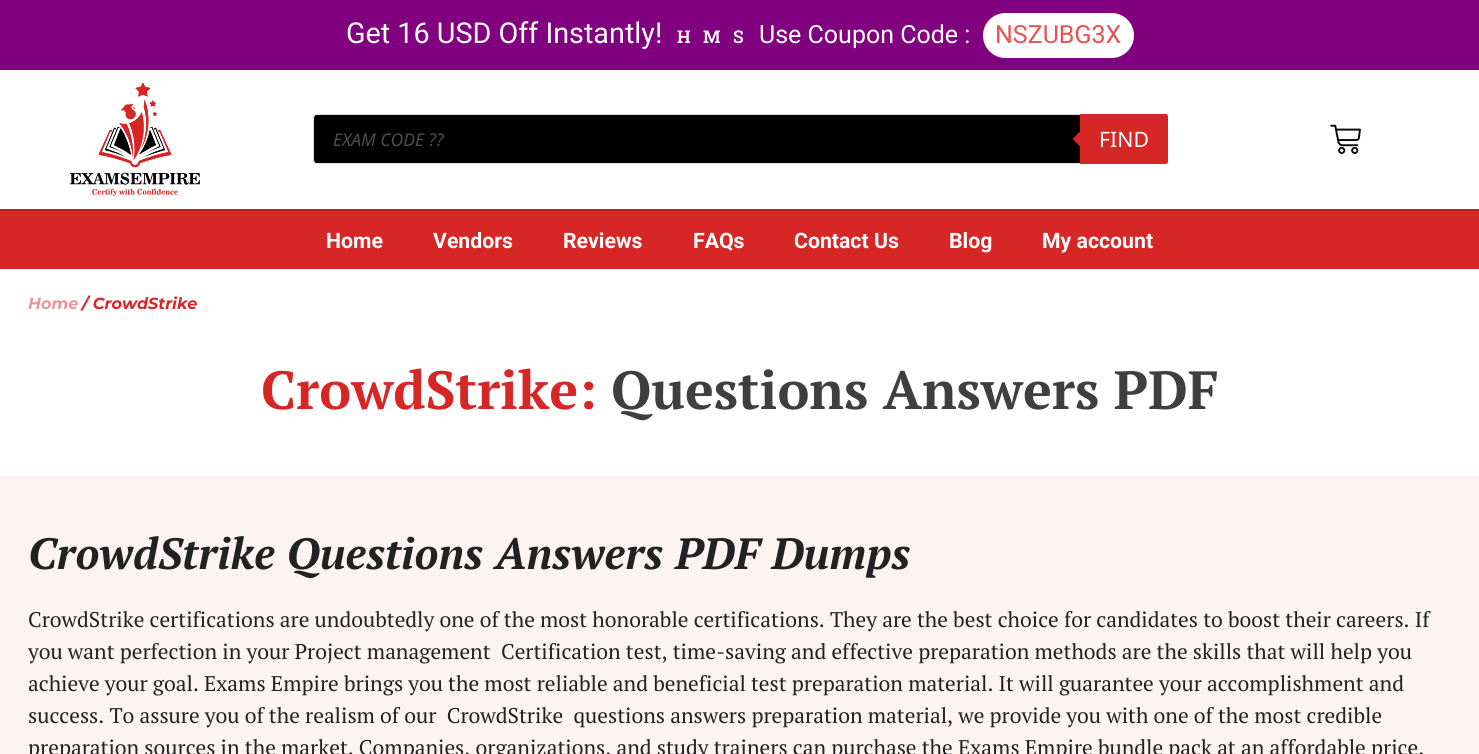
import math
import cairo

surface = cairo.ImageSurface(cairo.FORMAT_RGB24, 1479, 754)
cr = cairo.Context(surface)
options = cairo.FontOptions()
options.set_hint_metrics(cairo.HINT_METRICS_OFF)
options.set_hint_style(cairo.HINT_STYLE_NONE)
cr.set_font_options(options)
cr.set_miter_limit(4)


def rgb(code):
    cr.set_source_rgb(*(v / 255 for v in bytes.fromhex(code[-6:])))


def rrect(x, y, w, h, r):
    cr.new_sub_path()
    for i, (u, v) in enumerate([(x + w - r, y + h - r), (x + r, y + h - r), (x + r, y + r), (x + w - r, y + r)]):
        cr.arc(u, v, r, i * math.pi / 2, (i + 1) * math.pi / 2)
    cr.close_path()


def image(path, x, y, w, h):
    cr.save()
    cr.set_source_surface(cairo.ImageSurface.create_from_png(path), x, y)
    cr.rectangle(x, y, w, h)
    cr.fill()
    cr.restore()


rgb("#fdf3f3")
cr.paint()
rgb("#800080")
cr.rectangle(0, 0, 1479, 70)
cr.fill()
rgb("#ffffff")
rrect(983, 13, 151, 45, 22.5)
cr.fill()
cr.rectangle(0, 70, 1479, 139)
cr.fill()
rgb("#c91b1b")
cr.rectangle(0, 209, 1479, 2)
cr.fill()
image("img/1.png", 70, 83, 130, 113)
rgb("#000000")
rrect(313.5, 114.5, 854, 49, 3.5)
cr.fill_preserve()
rgb("#dddddd")
cr.set_line_width(1)
cr.stroke()
rgb("#d72626")
cr.new_path()
cr.move_to(1080, 114)
cr.line_to(1165.5, 114)
cr.curve_to(1167, 114, 1168, 115, 1168, 116.5)
cr.line_to(1168, 161.5)
cr.curve_to(1168, 163, 1167, 164, 1165.5, 164)
cr.line_to(1080, 164)
cr.close_path()
cr.fill()
cr.new_path()
cr.move_to(1082.5, 129)
cr.line_to(1082.5, 149)
cr.line_to(1072.5, 139)
cr.close_path()
cr.fill()
image("img/2.png", 1330, 124, 31, 30)
cr.rectangle(0, 211, 1479, 58)
cr.fill()
rgb("#ffffff")
cr.rectangle(0, 269, 1479, 207)
cr.fill()
cr.select_font_face("Roboto")
cr.set_font_size(28.75)
cr.move_to(346, 43)
cr.show_text("Get 16 USD Off Instantly!")
cr.select_font_face("Roboto Slab SemiBold")
cr.set_font_size(17.5)
for x, y, s in [
    (677, 43, "H"),
    (703, 43, "M"),
    (733, 43, "S"),
]:
    cr.move_to(x, y)
    cr.show_text(s)
cr.select_font_face("Roboto")
cr.set_font_size(25)
cr.move_to(759, 43)
cr.show_text("Use Coupon Code :")
rgb("#e65252")
cr.move_to(995, 43)
cr.show_text("NSZUBG3X")
cr.select_font_face("Noto Sans", cairo.FONT_SLANT_ITALIC)
cr.set_font_size(17.5)
rgb("#4d4d4d")
cr.move_to(333, 146)
cr.show_text("EXAM CODE ??")
cr.select_font_face("Noto Sans")
cr.set_font_size(21.25)
rgb("#ffffff")
cr.move_to(1099, 147)
cr.show_text("FIND")
cr.select_font_face("Roboto", cairo.FONT_SLANT_NORMAL, cairo.FONT_WEIGHT_BOLD)
for x, y, s in [
    (326, 248, "Home"),
    (433, 248, "Vendors"),
    (563, 248, "Reviews"),
    (693, 248, "FAQs"),
    (794, 248, "Contact Us"),
    (949, 248, "Blog"),
    (1042, 248, "My account"),
]:
    cr.move_to(x, y)
    cr.show_text(s)
cr.select_font_face("Montserrat", cairo.FONT_SLANT_ITALIC, cairo.FONT_WEIGHT_BOLD)
cr.set_font_size(16)
rgb("#ec9797")
cr.move_to(28, 309)
cr.show_text("Home")
rgb("#d72626")
cr.move_to(82, 309)
cr.show_text("/ CrowdStrike")
cr.select_font_face("PT Serif", cairo.FONT_SLANT_NORMAL, cairo.FONT_WEIGHT_BOLD)
cr.set_font_size(53.75)
cr.move_to(261, 409)
cr.show_text("CrowdStrike:")
rgb("#3f3f3f")
cr.move_to(611, 409)
cr.show_text("Questions Answers PDF")
cr.select_font_face("PT Serif", cairo.FONT_SLANT_ITALIC, cairo.FONT_WEIGHT_BOLD)
cr.set_font_size(43.75)
rgb("#222222")
cr.move_to(28, 569)
cr.show_text("CrowdStrike Questions Answers PDF Dumps")
cr.select_font_face("PT Serif")
cr.set_font_size(21.25)
for x, y, s in [
    (28, 627, "CrowdStrike certifications are undoubtedly one of the most honorable certifications. They are the best choice for candidates to boost their careers. If"),
    (28, 659, "you want perfection in your Project management  Certification test, time-saving and effective preparation methods are the skills that will help you"),
    (28, 691, "achieve your goal. Exams Empire brings you the most reliable and beneficial test preparation material. It will guarantee your accomplishment and"),
    (28, 723, "success. To assure you of the realism of our  CrowdStrike  questions answers preparation material, we provide you with one of the most credible"),
    (28, 755, "preparation sources in the market. Companies, organizations, and study trainers can purchase the Exams Empire bundle pack at an affordable price."),
]:
    cr.move_to(x, y)
    cr.show_text(s)
surface.write_to_png("page.png")
